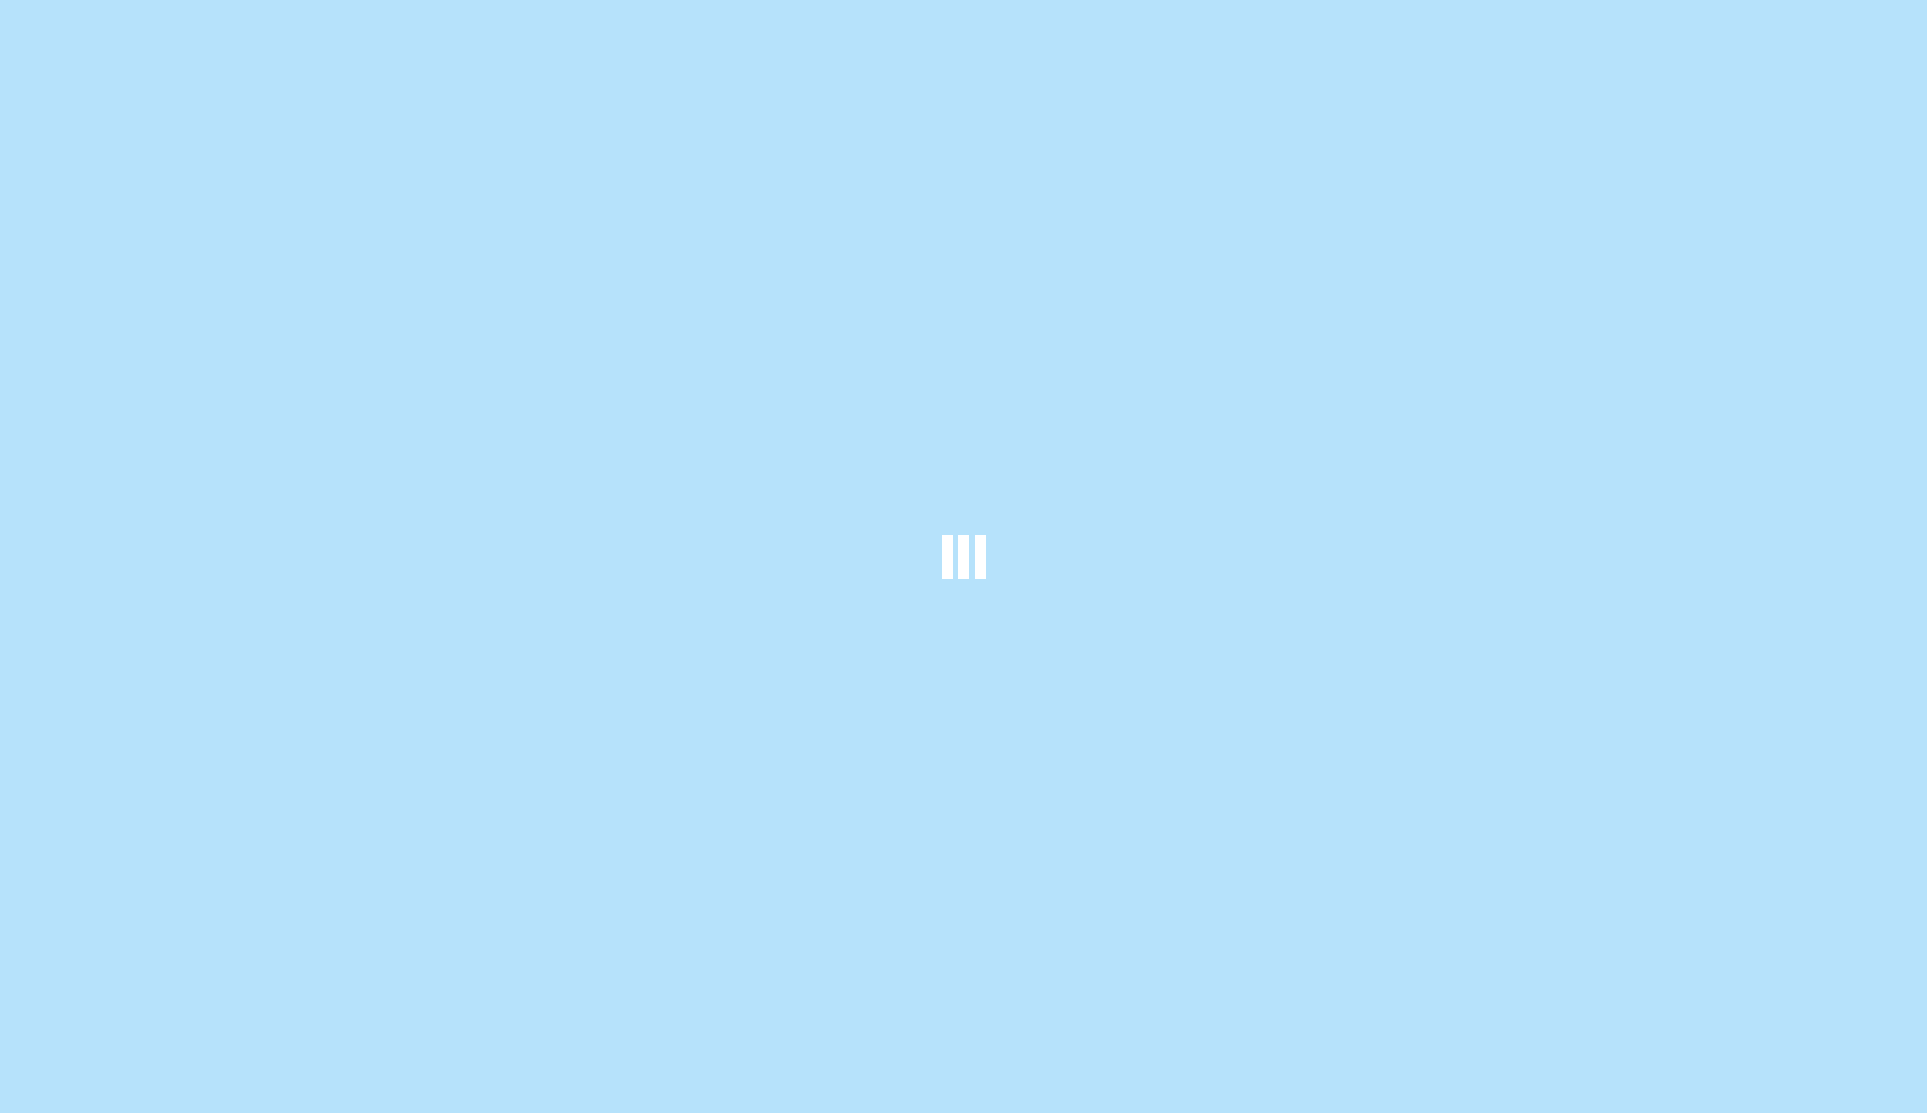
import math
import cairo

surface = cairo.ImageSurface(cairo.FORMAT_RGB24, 1927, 1113)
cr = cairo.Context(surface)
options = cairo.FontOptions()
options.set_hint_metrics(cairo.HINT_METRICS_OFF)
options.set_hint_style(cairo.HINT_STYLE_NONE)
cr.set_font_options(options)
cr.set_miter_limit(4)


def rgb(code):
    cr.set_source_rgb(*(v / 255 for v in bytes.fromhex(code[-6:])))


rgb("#b6e2fb")
cr.paint()
for x, y, w, h, color in [
    (958, 535, 11, 44, "#ffffff"),
    (942, 535, 11, 44, "#ffffff"),
    (975, 535, 11, 44, "#ffffff"),
]:
    rgb(color)
    cr.rectangle(x, y, w, h)
    cr.fill()
surface.write_to_png("page.png")
